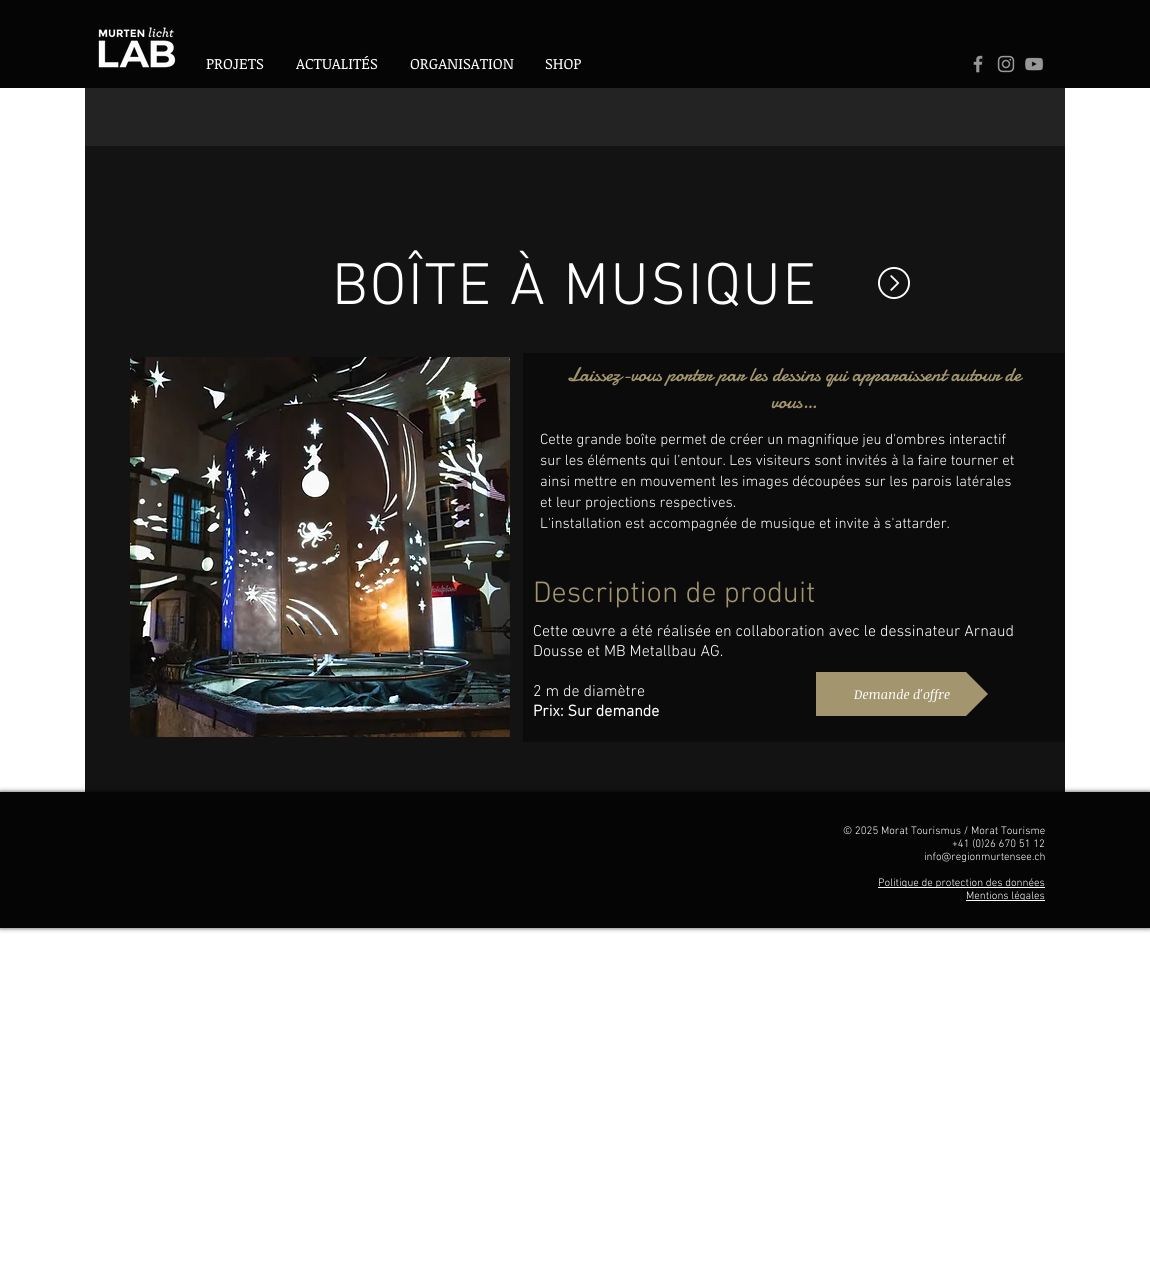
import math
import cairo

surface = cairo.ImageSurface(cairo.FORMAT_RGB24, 1150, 1268)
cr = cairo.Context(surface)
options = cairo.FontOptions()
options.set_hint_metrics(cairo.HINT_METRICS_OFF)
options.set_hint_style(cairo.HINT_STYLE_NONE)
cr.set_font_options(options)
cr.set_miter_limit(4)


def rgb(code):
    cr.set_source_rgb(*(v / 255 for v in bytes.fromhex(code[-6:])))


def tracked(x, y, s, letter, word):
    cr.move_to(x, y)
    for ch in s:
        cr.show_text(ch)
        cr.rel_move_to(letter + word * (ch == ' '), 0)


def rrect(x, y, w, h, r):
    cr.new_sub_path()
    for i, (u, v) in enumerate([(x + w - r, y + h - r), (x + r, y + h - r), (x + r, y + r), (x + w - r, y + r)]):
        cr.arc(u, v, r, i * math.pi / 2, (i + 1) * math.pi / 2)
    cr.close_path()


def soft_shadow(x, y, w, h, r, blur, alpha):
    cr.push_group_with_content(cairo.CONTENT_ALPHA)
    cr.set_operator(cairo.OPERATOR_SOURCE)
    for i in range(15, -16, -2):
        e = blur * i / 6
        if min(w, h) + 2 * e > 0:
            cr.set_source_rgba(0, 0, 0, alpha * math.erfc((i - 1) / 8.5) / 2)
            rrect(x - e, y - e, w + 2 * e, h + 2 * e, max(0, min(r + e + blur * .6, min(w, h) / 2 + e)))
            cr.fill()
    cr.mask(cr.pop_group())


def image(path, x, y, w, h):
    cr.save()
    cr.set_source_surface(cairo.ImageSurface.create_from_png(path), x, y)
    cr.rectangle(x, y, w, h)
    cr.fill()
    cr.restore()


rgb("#ffffff")
cr.paint()
rgb("#050505")
cr.rectangle(0, 0, 1150, 88)
cr.fill()
image("img/1.png", 98, 27, 78, 41)
image("img/2.png", 973, 55, 10, 18)
image("img/3.png", 997, 55, 18, 18)
image("img/4.png", 1025, 57, 19, 14)
rgb("#232323")
cr.rectangle(85, 88, 980, 58)
cr.fill()
rgb("#131313")
cr.rectangle(85, 146, 980, 646)
cr.fill()
image("img/5.png", 878, 267, 32, 32)
image("img/6.png", 130, 357, 380, 380)
rgb("#0b0b0b")
cr.rectangle(523, 353, 542, 389)
cr.fill()
rgb("#a3956d")
cr.rectangle(816, 672, 122, 44)
cr.fill()
cr.save()
cr.rectangle(816, 672, 172, 44)
cr.clip()
cr.new_path()
cr.move_to(988, 694)
cr.line_to(938, 694)
cr.line_to(938, 644)
cr.close_path()
cr.move_to(938, 694)
cr.line_to(988, 694)
cr.line_to(938, 744)
cr.close_path()
cr.fill()
cr.restore()
rgb("#000000")
soft_shadow(0, 792, 1150, 136, 0, 2.5, 0.7)
for x, y, w, h, color in [
    (0, 792, 1150, 136, "#050505"),
    (878, 887, 167, 1, "#ffffff"),
    (966, 900, 79, 1, "#ffffff"),
]:
    rgb(color)
    cr.rectangle(x, y, w, h)
    cr.fill()
cr.select_font_face("Noticia Text")
cr.set_font_size(15)
for x, y, s in [
    (206, 69, "PROJETS"),
    (296, 69, "ACTUALITÉS"),
    (410, 69, "ORGANISATION"),
    (545, 69, "SHOP"),
]:
    cr.move_to(x, y)
    cr.show_text(s)
cr.select_font_face("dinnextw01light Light")
cr.set_font_size(60)
tracked(332, 304, "BOÎTE À MUSIQUE", 1.75, 0)
cr.select_font_face("Damion")
cr.set_font_size(20)
rgb("#a3956d")
cr.move_to(567, 381)
cr.show_text("Laissez-vous porter par les dessins qui apparaissent autour de")
cr.move_to(771, 408)
cr.show_text("vous…")
cr.select_font_face("dinnextw01light Light")
cr.set_font_size(15)
rgb("#ffffff")
for x, y, s in [
    (540, 444, "Cette grande boîte permet de créer un magnifique jeu d'ombres interactif"),
    (540, 465, "sur les éléments qui l’entour. Les visiteurs sont invités à la faire tourner et"),
    (540, 486, "ainsi mettre en mouvement les images découpées sur les parois latérales"),
    (540, 507, "et leur projections respectives."),
    (540, 528, "L'installation est accompagnée de musique et invite à s'attarder."),
]:
    cr.move_to(x, y)
    cr.show_text(s)
cr.set_font_size(30)
rgb("#a3956d")
cr.move_to(533, 602)
cr.show_text("Description de produit")
cr.set_font_size(16)
rgb("#ffffff")
for x, y, s in [
    (533, 636, "Cette œuvre a été réalisée en collaboration avec le dessinateur Arnaud"),
    (533, 656, "Dousse et MB Metallbau AG."),
    (533, 696, "2 m de diamètre"),
]:
    cr.move_to(x, y)
    cr.show_text(s)
cr.select_font_face("dinnextw01light", cairo.FONT_SLANT_NORMAL, cairo.FONT_WEIGHT_BOLD)
cr.move_to(533, 716)
cr.show_text("Prix: Sur demande")
cr.select_font_face("Noticia Text", cairo.FONT_SLANT_ITALIC)
cr.set_font_size(13)
cr.move_to(854, 699)
cr.show_text("Demande d'offre")
cr.select_font_face("dinnextw01light Light")
cr.set_font_size(11)
for x, y, s in [
    (843, 834, "© 2025 Morat Tourismus / Morat Tourisme"),
    (952, 847, "+41 (0)26 670 51 12"),
    (924, 860, "info@regionmurtensee.ch"),
    (878, 886, "Politique de protection des données"),
    (966, 899, "Mentions légales"),
]:
    cr.move_to(x, y)
    cr.show_text(s)
surface.write_to_png("page.png")
